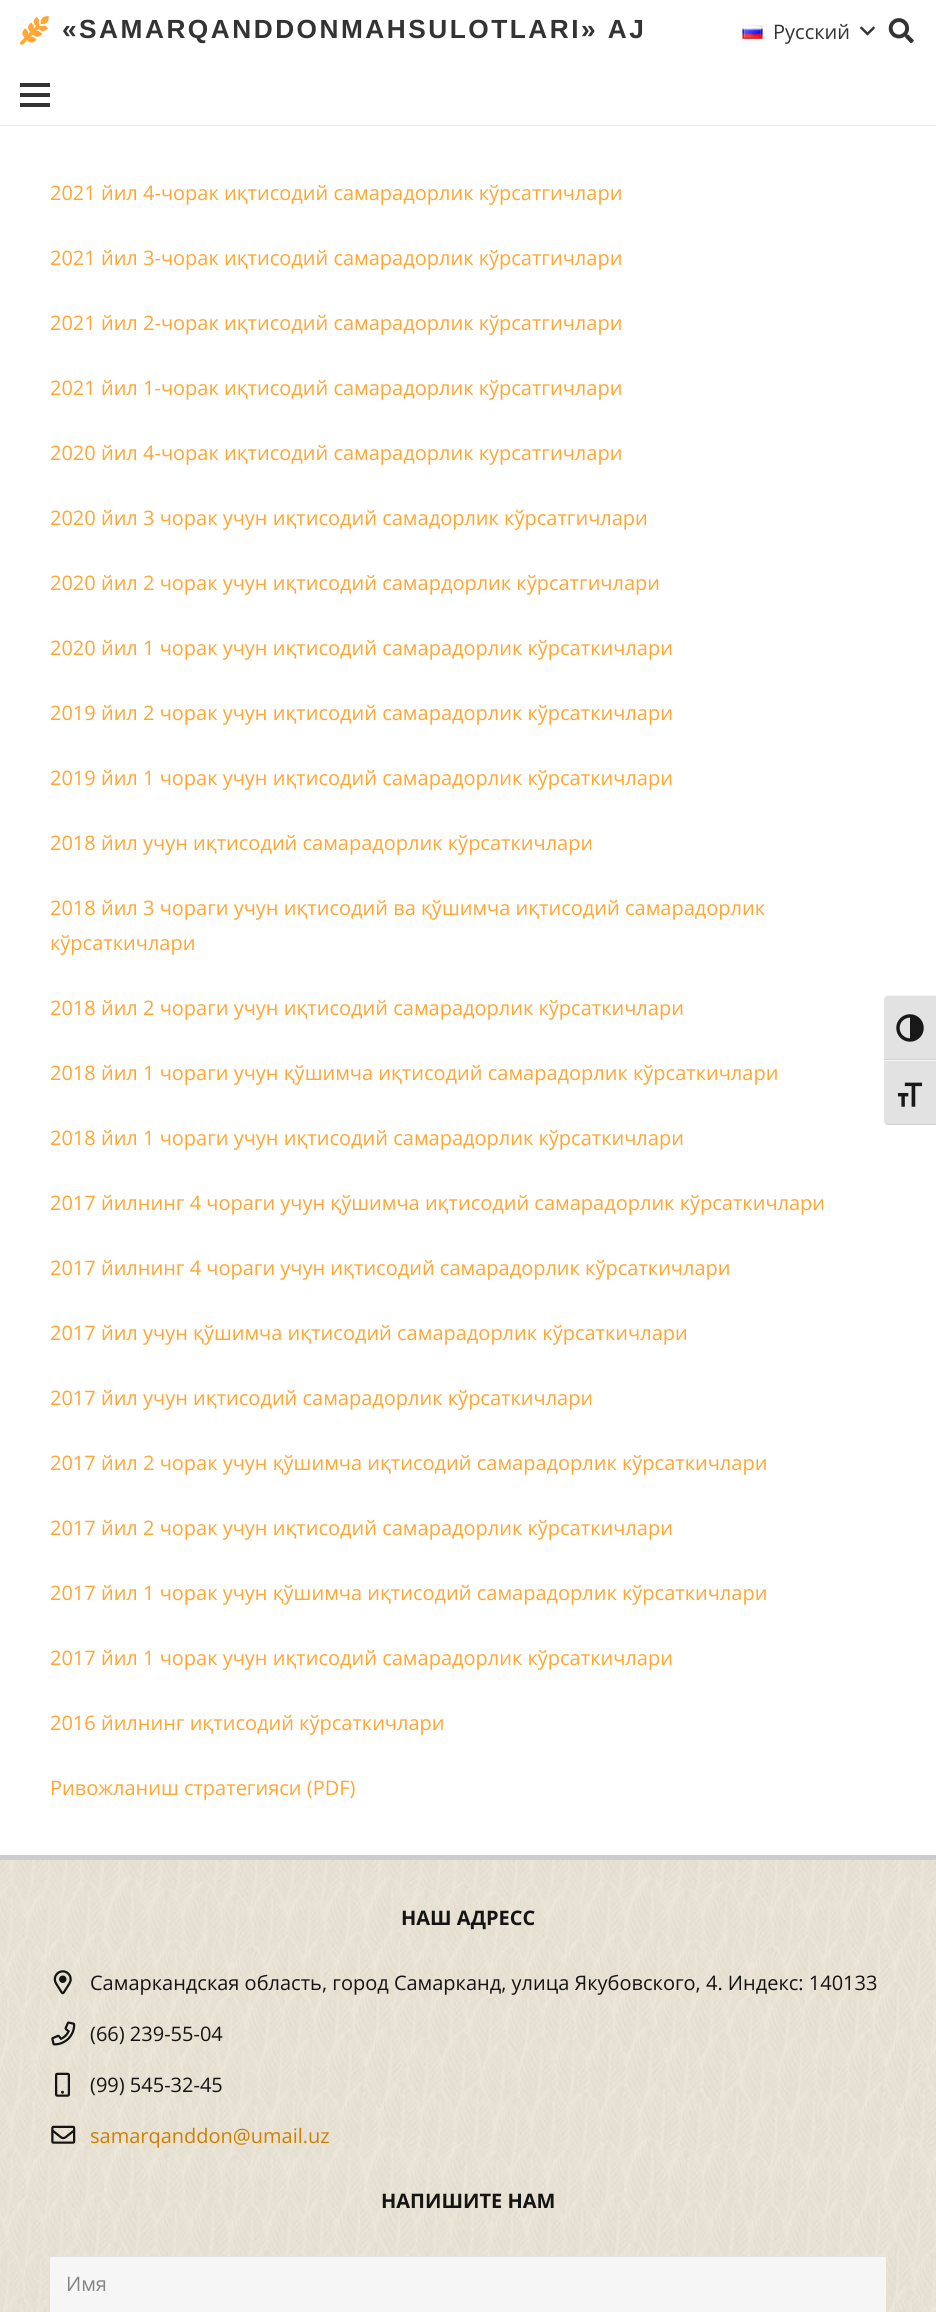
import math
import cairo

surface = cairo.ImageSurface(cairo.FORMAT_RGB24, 936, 2312)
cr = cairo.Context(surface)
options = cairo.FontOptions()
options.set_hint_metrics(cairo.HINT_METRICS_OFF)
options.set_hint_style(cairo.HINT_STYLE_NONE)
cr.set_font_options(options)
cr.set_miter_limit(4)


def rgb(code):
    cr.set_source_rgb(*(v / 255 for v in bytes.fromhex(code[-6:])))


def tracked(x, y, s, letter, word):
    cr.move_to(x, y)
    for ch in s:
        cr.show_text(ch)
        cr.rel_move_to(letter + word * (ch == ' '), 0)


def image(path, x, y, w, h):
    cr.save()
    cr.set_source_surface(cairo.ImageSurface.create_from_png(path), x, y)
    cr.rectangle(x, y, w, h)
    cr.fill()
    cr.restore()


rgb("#ffffff")
cr.paint()
image("img/1.png", 20, 16, 29, 29)
image("img/2.png", 742, 25, 21, 14)
image("img/3.png", 860, 26, 15, 10)
image("img/4.png", 888, 18, 26, 26)
for x, y, w, h, color in [
    (0, 125, 936, 1, "#ebebeb"),
    (20, 93, 30, 4, "#333333"),
    (20, 83, 30, 4, "#333333"),
    (20, 103, 30, 4, "#333333"),
]:
    rgb(color)
    cr.rectangle(x, y, w, h)
    cr.fill()
rgb("#e2e2e2")
cr.new_path()
cr.move_to(889, 995)
cr.line_to(936, 995)
cr.line_to(936, 1060)
cr.line_to(884, 1060)
cr.line_to(884, 1000)
cr.curve_to(884, 997, 886, 995, 889, 995)
cr.close_path()
cr.fill()
rgb("#f5f5f5")
cr.new_path()
cr.move_to(889, 995)
cr.curve_to(886, 995, 884, 997, 884, 1000)
cr.curve_to(884, 998, 886, 996, 889, 996)
cr.line_to(936, 996)
cr.line_to(936, 995)
cr.close_path()
cr.fill()
rgb("#d2d2d2")
cr.rectangle(884, 1059, 52, 1)
cr.fill()
image("img/5.png", 896, 1014, 28, 28)
rgb("#e2e2e2")
cr.new_path()
cr.move_to(884, 1060)
cr.line_to(936, 1060)
cr.line_to(936, 1125)
cr.line_to(889, 1125)
cr.curve_to(886, 1125, 884, 1123, 884, 1120)
cr.close_path()
cr.fill()
rgb("#f5f5f5")
cr.rectangle(884, 1060, 52, 1)
cr.fill()
rgb("#d2d2d2")
cr.new_path()
cr.move_to(936, 1125)
cr.line_to(936, 1124)
cr.line_to(889, 1124)
cr.curve_to(886, 1124, 884, 1122, 884, 1120)
cr.curve_to(884, 1123, 886, 1125, 889, 1125)
cr.close_path()
cr.fill()
image("img/6.png", 897, 1082, 26, 25)
image("img/7.png", 0, 1860, 936, 452)
rgb("#cccccc")
cr.rectangle(0, 1855, 936, 5)
cr.fill()
image("img/8.png", 53, 1970, 19, 25)
image("img/9.png", 51, 2021, 25, 25)
image("img/10.png", 55, 2072, 15, 25)
image("img/11.png", 51, 2125, 25, 19)
rgb("#f6f6f6")
cr.rectangle(50, 2257, 836, 55)
cr.fill()
rgb("#e2e2e2")
cr.rectangle(50, 2256, 836, 1)
cr.fill()
cr.select_font_face("Liberation Sans", cairo.FONT_SLANT_NORMAL, cairo.FONT_WEIGHT_BOLD)
cr.set_font_size(26.25)
rgb("#333333")
tracked(62, 38, "«SAMARQANDDONMAHSULOTLARI» AJ", 2.5, 0)
cr.select_font_face("Open Sans")
cr.set_font_size(20)
cr.move_to(773, 39)
cr.show_text("Русский")
rgb("#ffa633")
for x, y, s in [
    (50, 200, "2021 йил 4-чорак иқтисодий самарадорлик кўрсатгичлари"),
    (50, 265, "2021 йил 3-чорак иқтисодий самарадорлик кўрсатгичлари"),
    (50, 330, "2021 йил 2-чорак иқтисодий самарадорлик кўрсатгичлари"),
    (50, 395, "2021 йил 1-чорак иқтисодий самарадорлик кўрсатгичлари"),
    (50, 460, "2020 йил 4-чорак иқтисодий самарадорлик курсатгичлари"),
    (50, 525, "2020 йил 3 чорак учун иқтисодий самадорлик кўрсатгичлари"),
    (50, 590, "2020 йил 2 чорак учун иқтисодий самардорлик кўрсатгичлари"),
    (50, 655, "2020 йил 1 чорак учун иқтисодий самарадорлик кўрсаткичлари"),
    (50, 720, "2019 йил 2 чорак учун иқтисодий самарадорлик кўрсаткичлари"),
    (50, 785, "2019 йил 1 чорак учун иқтисодий самарадорлик кўрсаткичлари"),
    (50, 850, "2018 йил учун иқтисодий самарадорлик кўрсаткичлари"),
    (50, 915, "2018 йил 3 чораги учун иқтисодий ва қўшимча иқтисодий самарадорлик"),
    (50, 950, "кўрсаткичлари"),
    (50, 1015, "2018 йил 2 чораги учун иқтисодий самарадорлик кўрсаткичлари"),
    (50, 1080, "2018 йил 1 чораги учун қўшимча иқтисодий самарадорлик кўрсаткичлари"),
    (50, 1145, "2018 йил 1 чораги учун иқтисодий самарадорлик кўрсаткичлари"),
    (50, 1210, "2017 йилнинг 4 чораги учун қўшимча иқтисодий самарадорлик кўрсаткичлари"),
    (50, 1275, "2017 йилнинг 4 чораги учун иқтисодий самарадорлик кўрсаткичлари"),
    (50, 1340, "2017 йил учун қўшимча иқтисодий самарадорлик кўрсаткичлари"),
    (50, 1405, "2017 йил учун иқтисодий самарадорлик кўрсаткичлари"),
    (50, 1470, "2017 йил 2 чорак учун қўшимча иқтисодий самарадорлик кўрсаткичлари"),
    (50, 1535, "2017 йил 2 чорак учун иқтисодий самарадорлик кўрсаткичлари"),
    (50, 1600, "2017 йил 1 чорак учун қўшимча иқтисодий самарадорлик кўрсаткичлари"),
    (50, 1665, "2017 йил 1 чорак учун иқтисодий самарадорлик кўрсаткичлари"),
    (50, 1730, "2016 йилнинг иқтисодий кўрсаткичлари"),
    (50, 1795, "Ривожланиш стратегияси (PDF)"),
]:
    cr.move_to(x, y)
    cr.show_text(s)
cr.select_font_face("Open Sans", cairo.FONT_SLANT_NORMAL, cairo.FONT_WEIGHT_BOLD)
rgb("#141414")
cr.move_to(401, 1925)
cr.show_text("НАШ АДРЕСС")
cr.select_font_face("Open Sans")
for x, y, s in [
    (90, 1990, "Самаркандская область, город Самарканд, улица Якубовского, 4. Индекс: 140133"),
    (90, 2041, "(66) 239-55-04"),
    (90, 2092, "(99) 545-32-45"),
]:
    cr.move_to(x, y)
    cr.show_text(s)
rgb("#cf7f00")
cr.move_to(90, 2143)
cr.show_text("samarqanddon@umail.uz")
cr.select_font_face("Open Sans", cairo.FONT_SLANT_NORMAL, cairo.FONT_WEIGHT_BOLD)
rgb("#141414")
cr.move_to(381, 2208)
cr.show_text("НАПИШИТЕ НАМ")
cr.select_font_face("Open Sans")
rgb("#858585")
cr.move_to(66, 2291)
cr.show_text("Имя")
surface.write_to_png("page.png")
